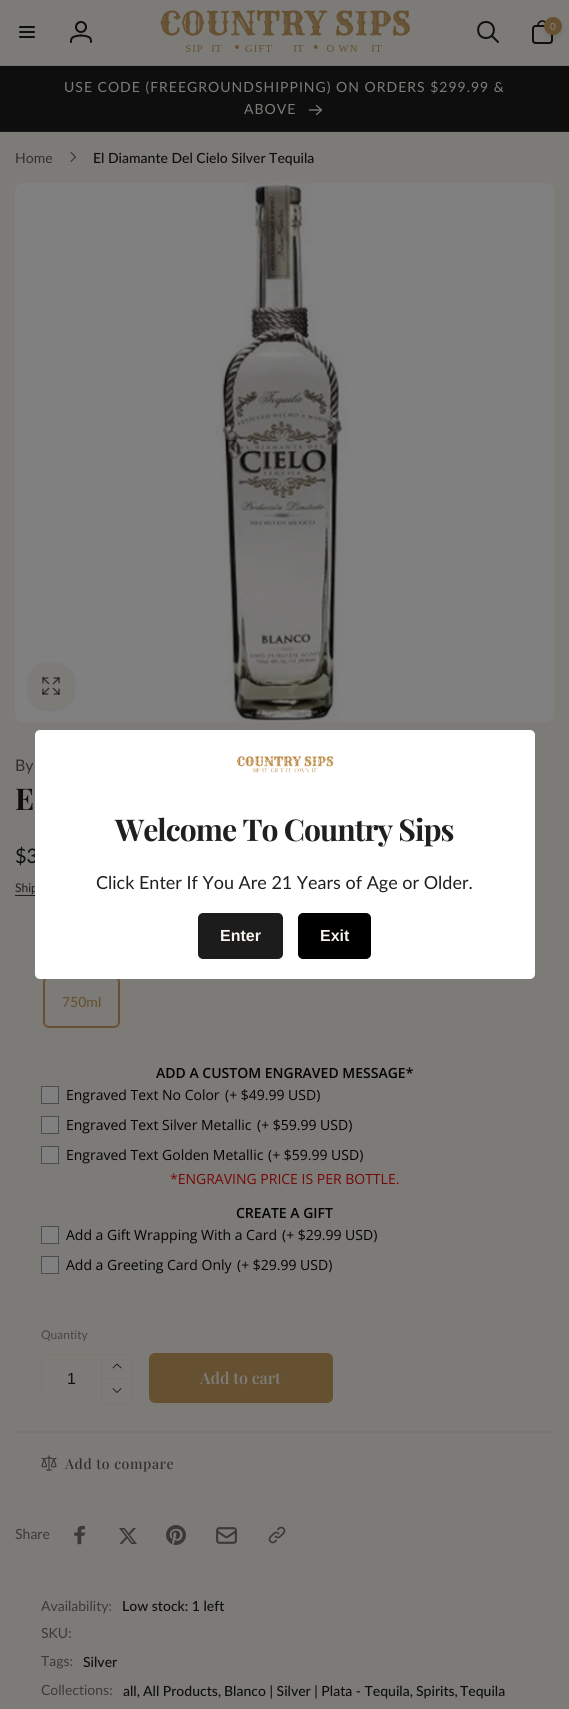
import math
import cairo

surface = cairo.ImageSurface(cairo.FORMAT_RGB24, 569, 1709)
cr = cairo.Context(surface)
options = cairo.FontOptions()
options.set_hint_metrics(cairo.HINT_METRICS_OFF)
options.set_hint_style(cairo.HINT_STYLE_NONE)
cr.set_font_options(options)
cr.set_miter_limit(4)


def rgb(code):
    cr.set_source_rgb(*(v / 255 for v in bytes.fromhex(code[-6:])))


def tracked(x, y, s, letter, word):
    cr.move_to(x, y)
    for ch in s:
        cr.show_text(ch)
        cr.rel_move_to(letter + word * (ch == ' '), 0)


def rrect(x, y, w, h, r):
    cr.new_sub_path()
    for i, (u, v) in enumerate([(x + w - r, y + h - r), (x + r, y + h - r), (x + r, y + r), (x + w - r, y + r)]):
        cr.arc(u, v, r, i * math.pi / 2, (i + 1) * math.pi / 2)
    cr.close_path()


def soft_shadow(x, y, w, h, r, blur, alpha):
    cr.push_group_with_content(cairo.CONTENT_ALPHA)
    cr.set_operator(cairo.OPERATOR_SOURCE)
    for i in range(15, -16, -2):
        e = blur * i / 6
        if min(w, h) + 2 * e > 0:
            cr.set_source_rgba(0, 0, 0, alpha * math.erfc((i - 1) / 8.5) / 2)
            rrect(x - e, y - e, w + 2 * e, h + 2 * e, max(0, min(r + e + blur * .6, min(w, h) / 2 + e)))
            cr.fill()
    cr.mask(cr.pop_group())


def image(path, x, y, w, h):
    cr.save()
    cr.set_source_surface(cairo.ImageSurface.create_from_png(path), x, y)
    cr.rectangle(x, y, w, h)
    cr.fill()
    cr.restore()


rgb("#7d7b77")
cr.paint()
rgb("#74726e")
cr.rectangle(0, 65, 569, 1)
cr.fill()
image("img/1.png", 19, 26, 16, 12)
image("img/2.png", 70, 21, 22, 22)
image("img/3.png", 160, 10, 250, 42)
cr.new_path()
cr.move_to(498, 42)
cr.line_to(491.5, 35.5)
cr.move_to(486, 38)
cr.curve_to(496.5, 38, 496.5, 22, 486, 22)
cr.curve_to(475.5, 22, 475.5, 38, 486, 38)
cr.close_path()
rgb("#0e0e0e")
cr.set_line_cap(cairo.LINE_CAP_ROUND)
cr.set_line_join(cairo.LINE_JOIN_ROUND)
cr.stroke()
image("img/4.png", 532, 20, 21, 24)
rgb("#0e0e0e")
soft_shadow(545, 22, 16, 16, 8, 3, 0.1)
rgb("#655131")
cr.arc(553, 26, 9, 0, 2 * math.pi)
cr.fill()
rgb("#0e0e0e")
cr.rectangle(0, 66, 569, 65)
cr.fill()
rgb("#171717")
cr.rectangle(0, 131, 569, 1)
cr.fill()
cr.new_path()
cr.move_to(316.5, 105.5)
cr.line_to(321.5, 110)
cr.move_to(321.5, 110)
cr.line_to(316.5, 114.5)
cr.move_to(321.5, 110)
cr.line_to(309.5, 110)
rgb("#7d7b77")
cr.set_line_width(1.3)
cr.stroke()
cr.new_path()
cr.move_to(71, 152.5)
cr.line_to(75.5, 157)
cr.line_to(71, 161.5)
rgb("#302f2e")
cr.set_line_width(1)
cr.stroke()
image("img/5.png", 15, 183, 539, 539)
rgb("#0e0e0e")
soft_shadow(28, 664, 46, 46, 18, 1.5, 0.1)
rgb("#7d7b77")
rrect(28, 663, 46, 46, 18)
cr.fill()
image("img/6.png", 42, 677, 18, 18)
rgb("#1f1f1e")
cr.rectangle(15, 895, 20, 1)
cr.fill()
rrect(43.5, 976.5, 76, 51, 5.5)
rgb("#655131")
cr.set_line_cap(cairo.LINE_CAP_BUTT)
cr.set_line_join(cairo.LINE_JOIN_MITER)
cr.stroke()
rrect(44.5, 977.5, 74, 49, 4.5)
cr.stroke()
rgb("#808080")
cr.rectangle(41.5, 1086.5, 17, 17)
cr.fill_preserve()
rgb("#4d4d4d")
cr.stroke()
rgb("#808080")
cr.rectangle(41.5, 1116.5, 17, 17)
cr.fill_preserve()
rgb("#4d4d4d")
cr.stroke()
rgb("#808080")
cr.rectangle(41.5, 1146.5, 17, 17)
cr.fill_preserve()
rgb("#4d4d4d")
cr.stroke()
rgb("#808080")
cr.rectangle(41.5, 1226.5, 17, 17)
cr.fill_preserve()
rgb("#4d4d4d")
cr.stroke()
rgb("#808080")
cr.rectangle(41.5, 1256.5, 17, 17)
cr.fill_preserve()
rgb("#4d4d4d")
cr.stroke()
rgb("#7b7770")
cr.new_path()
cr.move_to(50, 1355)
cr.line_to(101, 1355)
cr.line_to(101, 1354)
cr.line_to(49, 1354)
cr.curve_to(45, 1354, 41, 1358, 41, 1362)
cr.line_to(41, 1396)
cr.curve_to(41, 1399, 43, 1401, 45, 1403)
cr.curve_to(43, 1401, 42, 1399, 42, 1397)
cr.line_to(42, 1363)
cr.curve_to(42, 1359, 46, 1355, 50, 1355)
cr.close_path()
cr.fill()
cr.new_path()
cr.move_to(101.5, 1354.5)
cr.line_to(125, 1354.5)
cr.curve_to(129, 1354.5, 132.5, 1358, 132.5, 1362)
cr.line_to(132.5, 1378.5)
cr.line_to(101.5, 1378.5)
cr.close_path()
rgb("#787572")
cr.stroke()
cr.set_fill_rule(cairo.FILL_RULE_EVEN_ODD)
cr.new_path()
cr.move_to(101, 1379)
cr.line_to(133, 1379)
cr.line_to(133, 1396)
cr.curve_to(133, 1400.5, 129.5, 1404, 125, 1404)
cr.line_to(101, 1404)
cr.close_path()
cr.move_to(102, 1379)
cr.line_to(132, 1379)
cr.line_to(132, 1396)
cr.curve_to(132, 1400, 129, 1403, 125, 1403)
cr.line_to(102, 1403)
cr.close_path()
cr.fill()
cr.new_path()
cr.move_to(121, 1368)
cr.line_to(117, 1364)
cr.line_to(113, 1368)
cr.move_to(121, 1388.5)
cr.line_to(117, 1392.5)
cr.line_to(113, 1388.5)
rgb("#0e0e0e")
cr.set_line_width(0.8)
cr.set_line_cap(cairo.LINE_CAP_ROUND)
cr.set_line_join(cairo.LINE_JOIN_ROUND)
cr.stroke()
rgb("#655131")
rrect(149.5, 1353.5, 183, 49, 5.5)
cr.fill_preserve()
cr.set_line_width(1)
cr.set_line_cap(cairo.LINE_CAP_BUTT)
cr.set_line_join(cairo.LINE_JOIN_MITER)
cr.stroke()
rgb("#787572")
cr.rectangle(15, 1431, 539, 2)
cr.fill()
image("img/7.png", 41, 1455, 16, 16)
image("img/8.png", 74, 1525, 12, 20)
image("img/9.png", 119, 1528, 18, 16)
image("img/10.png", 166, 1525, 20, 20)
image("img/11.png", 216, 1527, 21, 17)
image("img/12.png", 268, 1526, 18, 18)
cr.select_font_face("Lato Medium")
cr.set_font_size(10)
rgb("#7d7b77")
cr.move_to(550, 30)
cr.show_text("0")
cr.select_font_face("Lato")
cr.set_font_size(14)
tracked(64, 92, "USE CODE (FREEGROUNDSHIPPING) ON ORDERS $299.99 &", 1, 0)
tracked(244, 114, "ABOVE", 1, 0)
rgb("#302f2e")
cr.move_to(15, 163)
cr.show_text("Home")
cr.select_font_face("Lato Medium")
rgb("#0e0e0e")
cr.move_to(93, 163)
cr.show_text("El Diamante Del Cielo Silver Tequila")
cr.select_font_face("Lato")
cr.set_font_size(16)
rgb("#302f2e")
cr.move_to(15, 771)
cr.show_text("By")
cr.select_font_face("Playfair Display", cairo.FONT_SLANT_NORMAL, cairo.FONT_WEIGHT_BOLD)
cr.set_font_size(30)
rgb("#0e0e0e")
tracked(15, 810, "E", -0.9, 0)
cr.select_font_face("Lato")
cr.set_font_size(20)
cr.move_to(15, 863)
cr.show_text("$3")
cr.set_font_size(12)
rgb("#1f1f1e")
cr.move_to(15, 892)
cr.show_text("Ship")
cr.select_font_face("Lato Medium")
cr.set_font_size(14)
rgb("#655131")
cr.move_to(62, 1007)
cr.show_text("750ml")
cr.select_font_face("Open Sans SemiBold")
rgb("#030303")
cr.move_to(156, 1078)
cr.show_text("ADD A CUSTOM ENGRAVED MESSAGE*")
cr.select_font_face("Open Sans")
for x, y, s in [
    (66, 1100, "Engraved Text No Color"),
    (225, 1100, "(+ $49.99 USD)"),
    (66, 1130, "Engraved Text Silver Metallic"),
    (257, 1130, "(+ $59.99 USD)"),
    (66, 1160, "Engraved Text Golden Metallic"),
    (268, 1160, "(+ $59.99 USD)"),
]:
    cr.move_to(x, y)
    cr.show_text(s)
rgb("#760707")
cr.move_to(170, 1184)
cr.show_text("*ENGRAVING PRICE IS PER BOTTLE.")
cr.select_font_face("Open Sans SemiBold")
rgb("#030303")
cr.move_to(236, 1218)
cr.show_text("CREATE A GIFT")
cr.select_font_face("Open Sans")
for x, y, s in [
    (66, 1240, "Add a Gift Wrapping With a Card"),
    (282, 1240, "(+ $29.99 USD)"),
    (66, 1270, "Add a Greeting Card Only"),
    (237, 1270, "(+ $29.99 USD)"),
]:
    cr.move_to(x, y)
    cr.show_text(s)
cr.select_font_face("Lato")
cr.set_font_size(12)
rgb("#464543")
cr.move_to(41, 1339)
cr.show_text("Quantity")
cr.select_font_face("Liberation Sans")
cr.set_font_size(16)
rgb("#0e0e0e")
cr.move_to(67, 1384)
cr.show_text("1")
cr.select_font_face("Playfair Display SemiBold")
rgb("#7d7b77")
cr.move_to(200, 1384)
cr.show_text("Add to cart")
cr.select_font_face("Playfair Display Medium")
cr.set_font_size(14)
rgb("#302f2e")
tracked(65, 1469, "Add to compare", 0.6, 0)
cr.select_font_face("Lato")
rgb("#3b3a38")
cr.move_to(15, 1539)
cr.show_text("Share")
cr.move_to(41, 1611)
cr.show_text("Availability:")
cr.select_font_face("Lato Medium")
rgb("#0e0e0e")
cr.move_to(122, 1611)
cr.show_text("Low stock: 1 left")
cr.select_font_face("Lato")
rgb("#3b3a38")
cr.move_to(41, 1638)
cr.show_text("SKU:")
cr.move_to(41, 1666)
cr.show_text("Tags:")
cr.select_font_face("Lato Medium")
rgb("#0e0e0e")
cr.move_to(83, 1667)
cr.show_text("Silver")
cr.select_font_face("Lato")
rgb("#3b3a38")
cr.move_to(41, 1695)
cr.show_text("Collections:")
cr.select_font_face("Lato Medium")
rgb("#0e0e0e")
for x, y, s in [
    (123, 1696, "all,"),
    (143, 1696, "All Products,"),
    (224, 1696, "Blanco | Silver | Plata - Tequila,"),
    (416, 1696, "Spirits,"),
    (460, 1696, "Tequila"),
]:
    cr.move_to(x, y)
    cr.show_text(s)
rgb("#ffffff")
rrect(35, 730, 500, 249, 5)
cr.fill()
image("img/13.png", 237, 756, 97, 17)
cr.select_font_face("Playfair Display", cairo.FONT_SLANT_NORMAL, cairo.FONT_WEIGHT_BOLD)
cr.set_font_size(30)
rgb("#1f1f1e")
tracked(115, 841, "Welcome To Country Sips", -0.9, 0)
cr.select_font_face("Lato")
cr.set_font_size(18)
cr.move_to(96, 889)
cr.show_text("Click Enter If You Are 21 Years of Age or Older.")
rgb("#1c1c1c")
rrect(199, 914, 83, 44, 4)
cr.fill_preserve()
cr.set_line_width(2)
cr.stroke()
cr.select_font_face("Liberation Sans", cairo.FONT_SLANT_NORMAL, cairo.FONT_WEIGHT_BOLD)
cr.set_font_size(16)
rgb("#f9f4ed")
cr.move_to(220, 941)
cr.show_text("Enter")
rgb("#000000")
rrect(299, 914, 71, 44, 4)
cr.fill_preserve()
cr.stroke()
rgb("#f9f4ed")
cr.move_to(320, 941)
cr.show_text("Exit")
surface.write_to_png("page.png")
